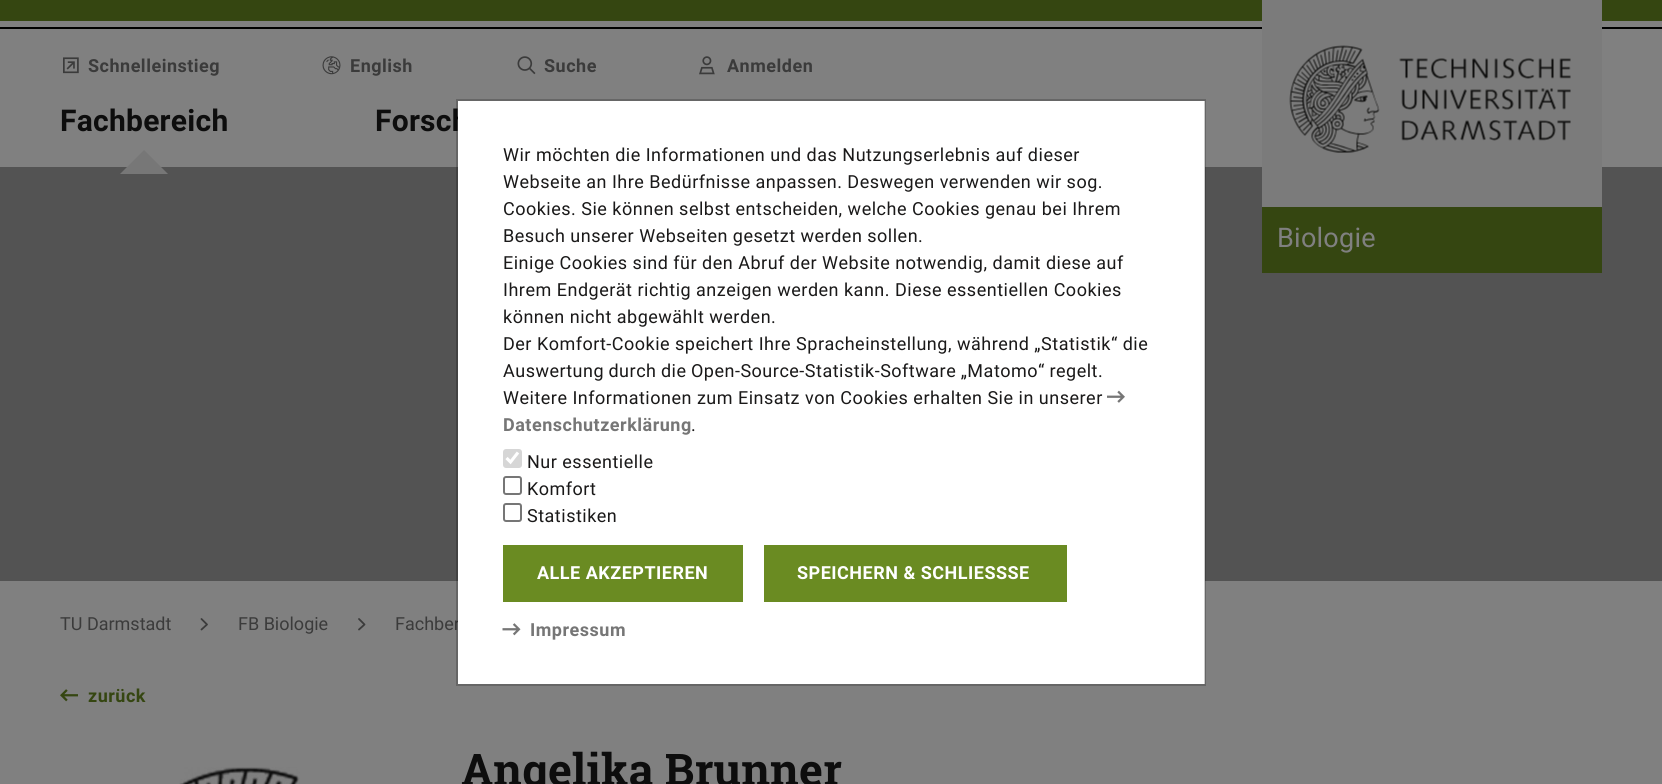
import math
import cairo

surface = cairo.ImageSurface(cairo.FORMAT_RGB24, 1662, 784)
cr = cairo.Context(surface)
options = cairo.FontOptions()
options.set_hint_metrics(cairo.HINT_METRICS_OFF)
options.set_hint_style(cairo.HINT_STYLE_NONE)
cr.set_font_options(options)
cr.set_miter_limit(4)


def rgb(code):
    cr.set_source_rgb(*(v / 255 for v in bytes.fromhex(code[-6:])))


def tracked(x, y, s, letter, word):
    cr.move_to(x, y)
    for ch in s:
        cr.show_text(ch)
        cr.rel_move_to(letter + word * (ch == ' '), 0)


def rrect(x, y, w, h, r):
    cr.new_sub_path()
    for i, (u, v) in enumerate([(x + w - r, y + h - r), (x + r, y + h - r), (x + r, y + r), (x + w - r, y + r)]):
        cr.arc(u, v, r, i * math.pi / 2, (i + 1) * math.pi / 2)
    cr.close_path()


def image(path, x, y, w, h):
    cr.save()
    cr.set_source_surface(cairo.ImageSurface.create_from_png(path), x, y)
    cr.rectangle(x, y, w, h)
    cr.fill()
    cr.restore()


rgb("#808080")
cr.paint()
rgb("#354611")
cr.rectangle(0, 0, 1662, 21)
cr.fill()
rgb("#000000")
cr.rectangle(0, 27, 1662, 2)
cr.fill()
image("img/1.png", 63, 57, 16, 17)
image("img/2.png", 322, 56, 19, 19)
image("img/3.png", 517, 56, 19, 19)
image("img/4.png", 699, 56, 16, 19)
rgb("#535353")
cr.rectangle(0, 167, 1662, 414)
cr.fill()
rgb("#777777")
cr.new_path()
cr.move_to(168, 174)
cr.line_to(120, 174)
cr.line_to(144, 150)
cr.close_path()
cr.fill()
rgb("#7b7b7b")
cr.rectangle(1262, 0, 340, 207)
cr.fill()
image("img/5.png", 1289, 45, 282, 108)
rgb("#354611")
cr.rectangle(1262, 207, 340, 66)
cr.fill()
cr.new_path()
cr.move_to(201.5, 629.5)
cr.line_to(207, 624.5)
cr.line_to(201.5, 619)
rgb("#3b3b3b")
cr.set_line_width(1.8)
cr.set_line_cap(cairo.LINE_CAP_ROUND)
cr.set_line_join(cairo.LINE_JOIN_ROUND)
cr.stroke()
cr.new_path()
cr.move_to(359, 629.5)
cr.line_to(364.5, 624.5)
cr.line_to(359, 619)
cr.stroke()
image("img/6.png", 60, 689, 18, 13)
image("img/7.png", 179, 767, 121, 17)
cr.select_font_face("Roboto", cairo.FONT_SLANT_NORMAL, cairo.FONT_WEIGHT_BOLD)
cr.set_font_size(18)
for x, y, s in [
    (88, 72, "Schnelleinstieg"),
    (350, 72, "English"),
    (544, 72, "Suche"),
    (727, 72, "Anmelden"),
]:
    tracked(x, y, s, 0.5, 0)
cr.set_font_size(30)
rgb("#0d0d0d")
tracked(60, 131, "Fachbereich", 0.25, 0)
tracked(375, 131, "Forsch", 0.25, 0)
cr.select_font_face("Roboto")
cr.set_font_size(27)
rgb("#808080")
tracked(1277, 247, "Biologie", 0.25, 0)
cr.set_font_size(18)
rgb("#3b3b3b")
for x, y, s in [
    (60, 630, "TU Darmstadt"),
    (238, 630, "FB Biologie"),
    (395, 630, "Fachber"),
]:
    cr.move_to(x, y)
    cr.show_text(s)
cr.select_font_face("Roboto", cairo.FONT_SLANT_NORMAL, cairo.FONT_WEIGHT_BOLD)
rgb("#354611")
tracked(88, 702, "zurück", 0.5, 0)
cr.select_font_face("Roboto Slab", cairo.FONT_SLANT_NORMAL, cairo.FONT_WEIGHT_BOLD)
cr.set_font_size(45)
rgb("#0d0d0d")
tracked(461, 786, "Angelika Brunner", 0.1, 0)
rgb("#ffffff")
cr.rectangle(458, 101, 747, 583)
cr.fill()
cr.rectangle(457, 100, 748, 585)
cr.set_source_rgba(0, 0, 0, 0.2)
cr.set_line_width(2)
cr.set_line_cap(cairo.LINE_CAP_BUTT)
cr.set_line_join(cairo.LINE_JOIN_MITER)
cr.stroke()
cr.select_font_face("Roboto")
cr.set_font_size(18)
rgb("#1a1919")
for x, y, s in [
    (503, 161, "Wir möchten die Informationen und das Nutzungserlebnis auf dieser"),
    (503, 188, "Webseite an Ihre Bedürfnisse anpassen. Deswegen verwenden wir sog."),
    (503, 215, "Cookies. Sie können selbst entscheiden, welche Cookies genau bei Ihrem"),
    (503, 242, "Besuch unserer Webseiten gesetzt werden sollen."),
    (503, 269, "Einige Cookies sind für den Abruf der Website notwendig, damit diese auf"),
    (503, 296, "Ihrem Endgerät richtig anzeigen werden kann. Diese essentiellen Cookies"),
    (503, 323, "können nicht abgewählt werden."),
    (503, 350, "Der Komfort-Cookie speichert Ihre Spracheinstellung, während „Statistik“ die"),
]:
    tracked(x, y, s, 0.5, 0)
tracked(503, 377, "Auswertung durch die Open-Source-Statistik-Software „Matomo“ regelt.", 0.5, -0.5)
tracked(503, 404, "Weitere Informationen zum Einsatz von Cookies erhalten Sie in unserer", 0.5, 0)
image("img/8.png", 1107, 390, 18, 13)
cr.select_font_face("Roboto", cairo.FONT_SLANT_NORMAL, cairo.FONT_WEIGHT_BOLD)
rgb("#767676")
tracked(503, 431, "Datenschutzerklärung", 0.5, 0)
cr.select_font_face("Roboto")
rgb("#1a1919")
tracked(691, 431, ".", 0.5, 0)
rgb("#d6d6d6")
rrect(503, 449, 19, 19, 3)
cr.fill()
cr.new_path()
cr.move_to(506.5, 458)
cr.line_to(510.5, 462)
cr.line_to(518, 452.5)
rgb("#ffffff")
cr.set_line_width(3.1)
cr.stroke()
rgb("#1a1919")
tracked(527, 468, "Nur essentielle", 0.5, 0)
rrect(504, 477, 17, 17, 2)
rgb("#767676")
cr.set_line_width(2)
cr.stroke()
rgb("#1a1919")
tracked(527, 495, "Komfort", 0.5, 0)
rrect(504, 504, 17, 17, 2)
rgb("#767676")
cr.stroke()
rgb("#1a1919")
tracked(527, 522, "Statistiken", 0.5, 0)
rgb("#6a8b22")
cr.rectangle(503, 545, 240, 57)
cr.fill()
cr.select_font_face("Roboto", cairo.FONT_SLANT_NORMAL, cairo.FONT_WEIGHT_BOLD)
rgb("#ffffff")
tracked(537, 579, "ALLE AKZEPTIEREN", 0.5, 0)
rgb("#6a8b22")
cr.rectangle(764, 545, 303, 57)
cr.fill()
rgb("#ffffff")
tracked(797, 579, "SPEICHERN & SCHLIESSSE", 0.5, 0)
image("img/9.png", 502, 623, 19, 13)
rgb("#767676")
tracked(530, 636, "Impressum", 0.5, 0)
surface.write_to_png("page.png")
